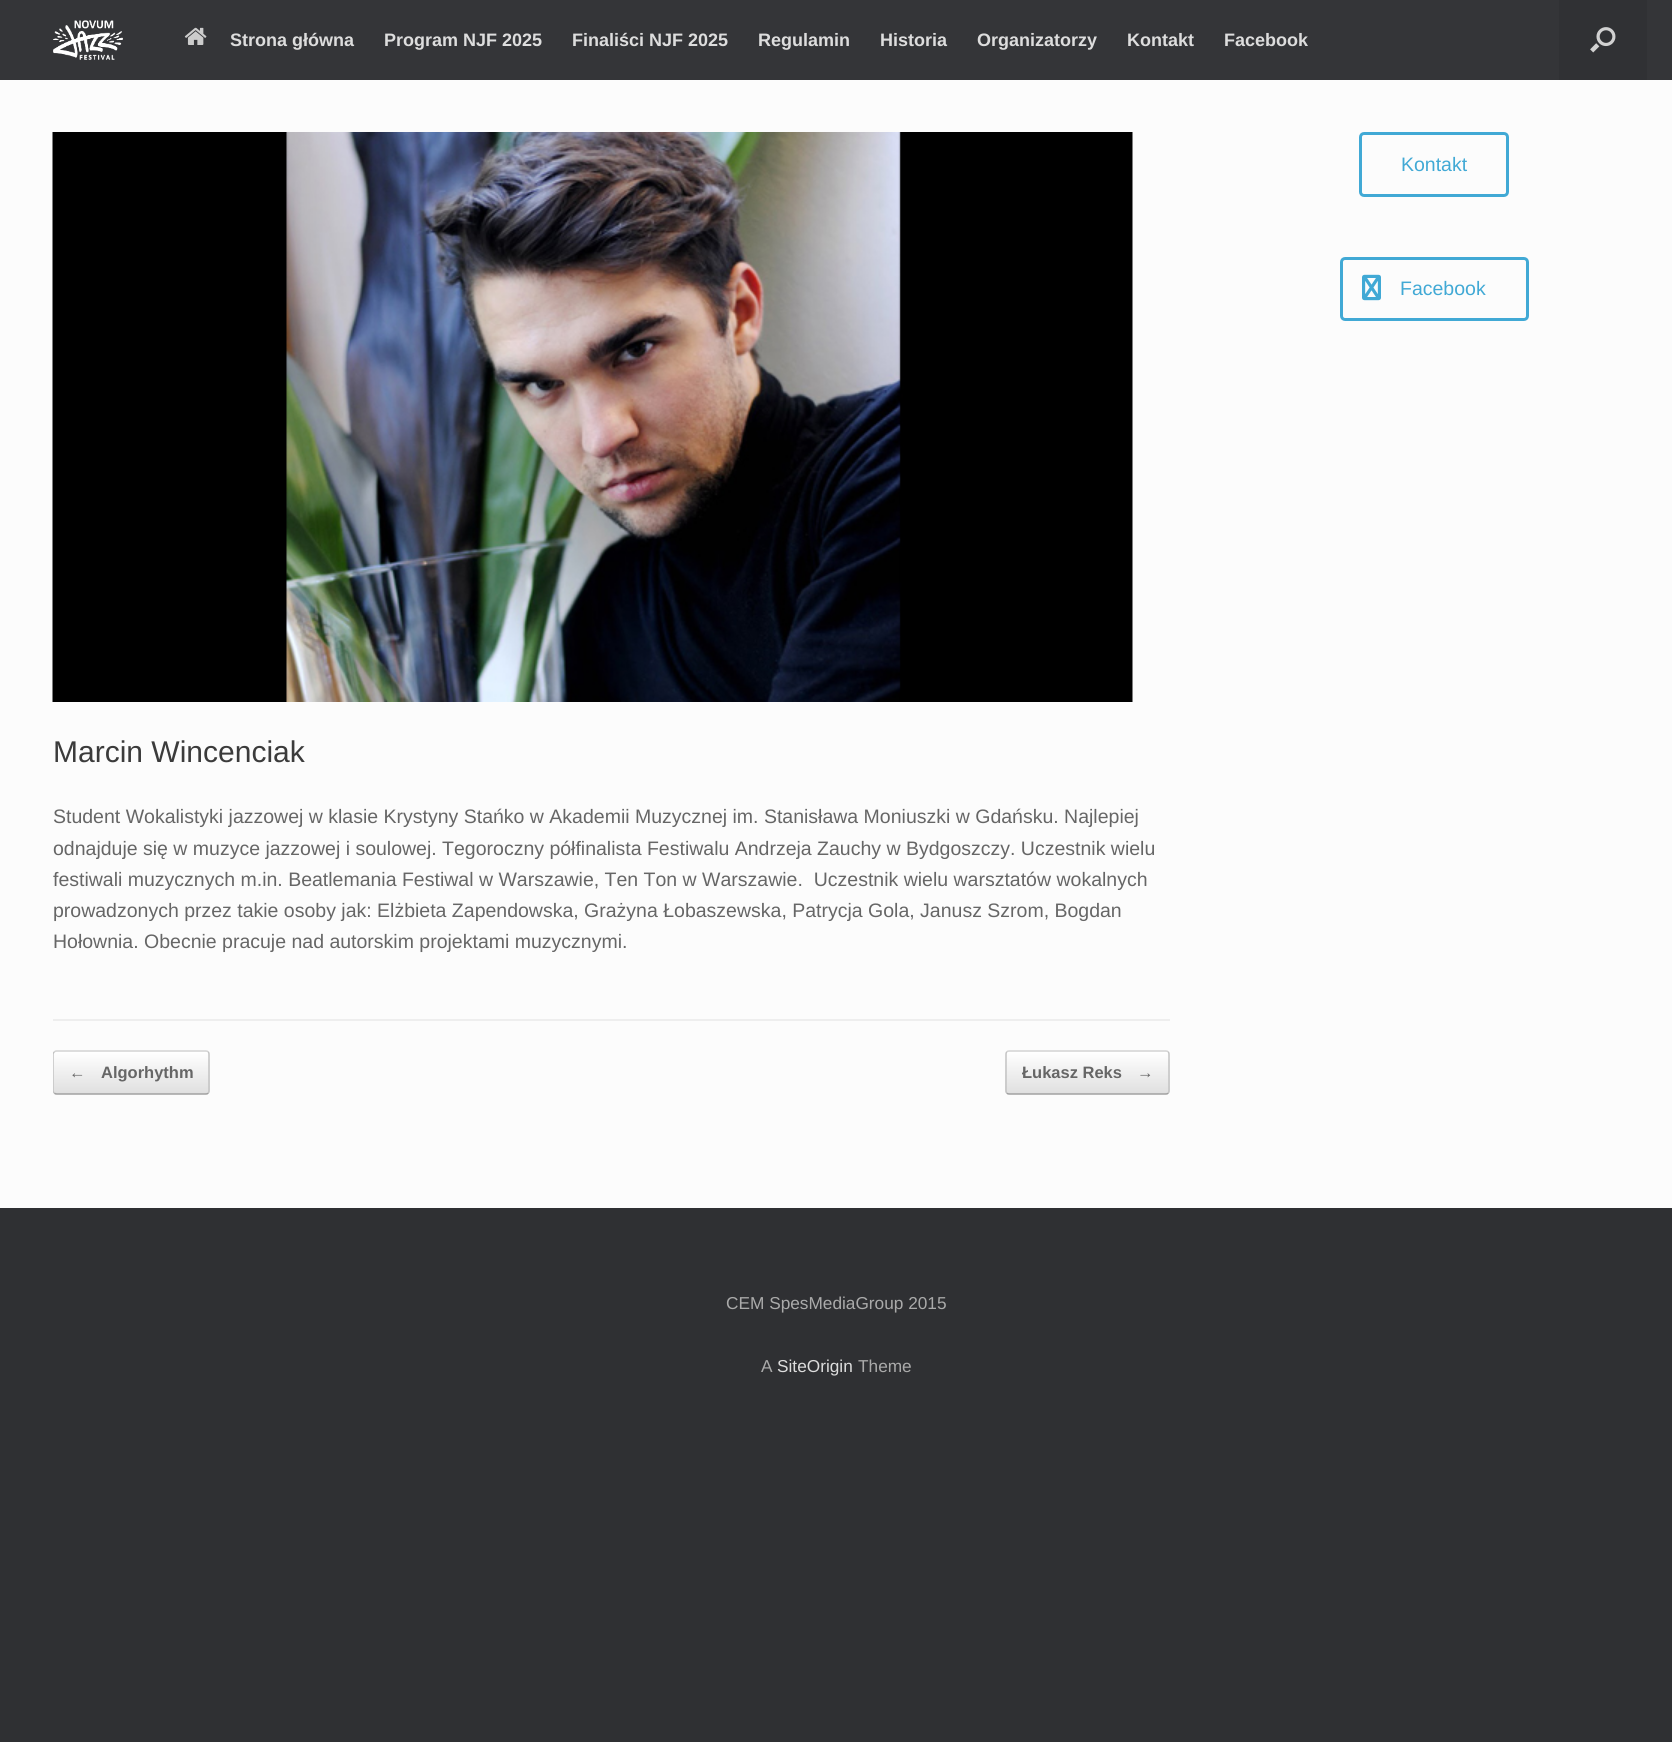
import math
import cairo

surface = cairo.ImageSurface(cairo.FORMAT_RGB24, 1672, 1742)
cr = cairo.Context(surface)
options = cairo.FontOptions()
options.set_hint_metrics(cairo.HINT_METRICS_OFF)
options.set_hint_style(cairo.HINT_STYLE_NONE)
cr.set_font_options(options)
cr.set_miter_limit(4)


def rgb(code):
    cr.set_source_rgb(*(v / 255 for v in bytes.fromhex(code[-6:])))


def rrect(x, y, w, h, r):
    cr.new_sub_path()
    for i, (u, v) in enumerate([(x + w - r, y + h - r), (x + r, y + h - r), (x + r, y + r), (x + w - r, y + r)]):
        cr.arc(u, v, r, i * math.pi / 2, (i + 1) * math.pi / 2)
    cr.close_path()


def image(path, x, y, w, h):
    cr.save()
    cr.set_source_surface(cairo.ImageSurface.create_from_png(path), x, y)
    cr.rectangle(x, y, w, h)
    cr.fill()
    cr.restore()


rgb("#2f3033")
cr.paint()
rgb("#343538")
cr.rectangle(0, 0, 1672, 80)
cr.fill()
image("img/1.png", 53, 20, 70, 40)
image("img/2.png", 184, 27, 23, 18)
rgb("#303134")
cr.rectangle(1559, 0, 88, 80)
cr.fill()
image("img/3.png", 1590, 27, 26, 26)
rgb("#fcfcfc")
cr.rectangle(0, 80, 1672, 1128)
cr.fill()
rrect(1360.5, 133.5, 147, 62, 3.5)
rgb("#41a9d5")
cr.set_line_width(3)
cr.stroke()
rrect(1341.5, 258.5, 186, 61, 3.5)
cr.stroke()
image("img/4.png", 1362, 274, 19, 27)
rgb("#eeeeee")
cr.rectangle(53, 1019, 1117, 2)
cr.fill()
image("img/5.png", 52, 132, 1081, 570)
cr.save()
rrect(53, 1050, 157, 45, 5)
cr.clip()
gradient = cairo.LinearGradient(54, 1094, 54, 1052)
gradient.add_color_stop_rgba(0, 0.875, 0.875, 0.875, 1)
gradient.add_color_stop_rgba(1, 1, 1, 1, 1)
cr.set_source(gradient)
cr.rectangle(53, 1052, 157, 42)
cr.fill()
cr.restore()
cr.new_path()
cr.move_to(54.5, 1052)
cr.curve_to(55, 1051, 56, 1051, 57, 1051)
cr.line_to(205.5, 1051)
cr.curve_to(206.5, 1051, 207.5, 1051, 208, 1052)
rgb("#d2d2d2")
cr.set_line_width(1.5)
cr.stroke()
cr.new_path()
cr.move_to(208, 1052)
cr.curve_to(209, 1052.5, 209, 1053.5, 209, 1054.5)
cr.line_to(209, 1090.5)
cr.curve_to(209, 1091.5, 209, 1092.5, 208, 1093)
rgb("#c3c3c3")
cr.stroke()
cr.new_path()
cr.move_to(208, 1093)
cr.curve_to(207.5, 1094, 206.5, 1094, 205.5, 1094)
cr.line_to(57, 1094)
cr.curve_to(56, 1094, 55, 1094, 54.5, 1093)
rgb("#9f9f9f")
cr.stroke()
cr.save()
cr.rectangle(53, 1050, 1117, 45)
cr.clip()
cr.new_path()
cr.move_to(54.5, 1093)
cr.curve_to(53.5, 1092.5, 53, 1091.5, 53, 1090.5)
cr.line_to(53, 1054.5)
cr.curve_to(53, 1053.5, 53.5, 1052.5, 54.5, 1052)
rgb("#c3c3c3")
cr.stroke()
cr.restore()
cr.save()
rrect(1005, 1050, 165, 45, 5)
cr.clip()
gradient = cairo.LinearGradient(1007, 1094, 1007, 1052)
gradient.add_color_stop_rgba(0, 0.875, 0.875, 0.875, 1)
gradient.add_color_stop_rgba(1, 1, 1, 1, 1)
cr.set_source(gradient)
cr.rectangle(1005, 1052, 165, 42)
cr.fill()
cr.restore()
cr.new_path()
cr.move_to(1007, 1052)
cr.curve_to(1007.5, 1051, 1008.5, 1051, 1009.5, 1051)
cr.line_to(1165.5, 1051)
cr.curve_to(1166.5, 1051, 1167.5, 1051, 1168, 1052)
rgb("#d2d2d2")
cr.stroke()
cr.new_path()
cr.move_to(1168, 1052)
cr.curve_to(1169, 1052.5, 1169, 1053.5, 1169, 1054.5)
cr.line_to(1169, 1090.5)
cr.curve_to(1169, 1091.5, 1169, 1092.5, 1168, 1093)
rgb("#c3c3c3")
cr.stroke()
cr.new_path()
cr.move_to(1168, 1093)
cr.curve_to(1167.5, 1094, 1166.5, 1094, 1165.5, 1094)
cr.line_to(1009.5, 1094)
cr.curve_to(1008.5, 1094, 1007.5, 1094, 1007, 1093)
rgb("#9f9f9f")
cr.stroke()
cr.new_path()
cr.move_to(1007, 1093)
cr.curve_to(1006, 1092.5, 1006, 1091.5, 1006, 1090.5)
cr.line_to(1006, 1054.5)
cr.curve_to(1006, 1053.5, 1006, 1052.5, 1007, 1052)
rgb("#c3c3c3")
cr.stroke()
cr.select_font_face("Liberation Sans", cairo.FONT_SLANT_NORMAL, cairo.FONT_WEIGHT_BOLD)
cr.set_font_size(18)
rgb("#dddddd")
for x, y, s in [
    (230, 46, "Strona główna"),
    (384, 46, "Program NJF 2025"),
    (572, 46, "Finaliści NJF 2025"),
    (758, 46, "Regulamin"),
    (880, 46, "Historia"),
    (977, 46, "Organizatorzy"),
    (1127, 46, "Kontakt"),
    (1224, 46, "Facebook"),
]:
    cr.move_to(x, y)
    cr.show_text(s)
cr.select_font_face("Liberation Sans")
cr.set_font_size(19.5)
rgb("#41a9d5")
cr.move_to(1401, 171)
cr.show_text("Kontakt")
cr.move_to(1400, 295)
cr.show_text("Facebook")
cr.set_font_size(30)
rgb("#3b3b3b")
cr.move_to(53, 762)
cr.show_text("Marcin Wincenciak")
cr.set_font_size(19.5)
rgb("#666666")
for x, y, s in [
    (53, 823, "Student Wokalistyki jazzowej w klasie Krystyny Stańko w Akademii Muzycznej im. Stanisława Moniuszki w Gdańsku. Najlepiej"),
    (53, 855, "odnajduje się w muzyce jazzowej i soulowej. Tegoroczny półfinalista Festiwalu Andrzeja Zauchy w Bydgoszczy. Uczestnik wielu"),
    (53, 886, "festiwali muzycznych m.in. Beatlemania Festiwal w Warszawie, Ten Ton w Warszawie.  Uczestnik wielu warsztatów wokalnych"),
    (53, 917, "prowadzonych przez takie osoby jak: Elżbieta Zapendowska, Grażyna Łobaszewska, Patrycja Gola, Janusz Szrom, Bogdan"),
    (53, 948, "Hołownia. Obecnie pracuje nad autorskim projektami muzycznymi."),
]:
    cr.move_to(x, y)
    cr.show_text(s)
cr.select_font_face("Liberation Sans", cairo.FONT_SLANT_NORMAL, cairo.FONT_WEIGHT_BOLD)
cr.set_font_size(16.5)
for x, y, s in [
    (69, 1078, "←"),
    (101, 1078, "Algorhythm"),
    (1022, 1078, "Łukasz Reks"),
    (1137, 1078, "→"),
]:
    cr.move_to(x, y)
    cr.show_text(s)
cr.select_font_face("Liberation Sans")
cr.set_font_size(17.25)
rgb("#aaaaaa")
cr.move_to(726, 1309)
cr.show_text("CEM SpesMediaGroup 2015")
cr.move_to(761, 1372)
cr.show_text("A")
rgb("#dddddd")
cr.move_to(777, 1372)
cr.show_text("SiteOrigin")
rgb("#aaaaaa")
cr.move_to(858, 1372)
cr.show_text("Theme")
surface.write_to_png("page.png")
